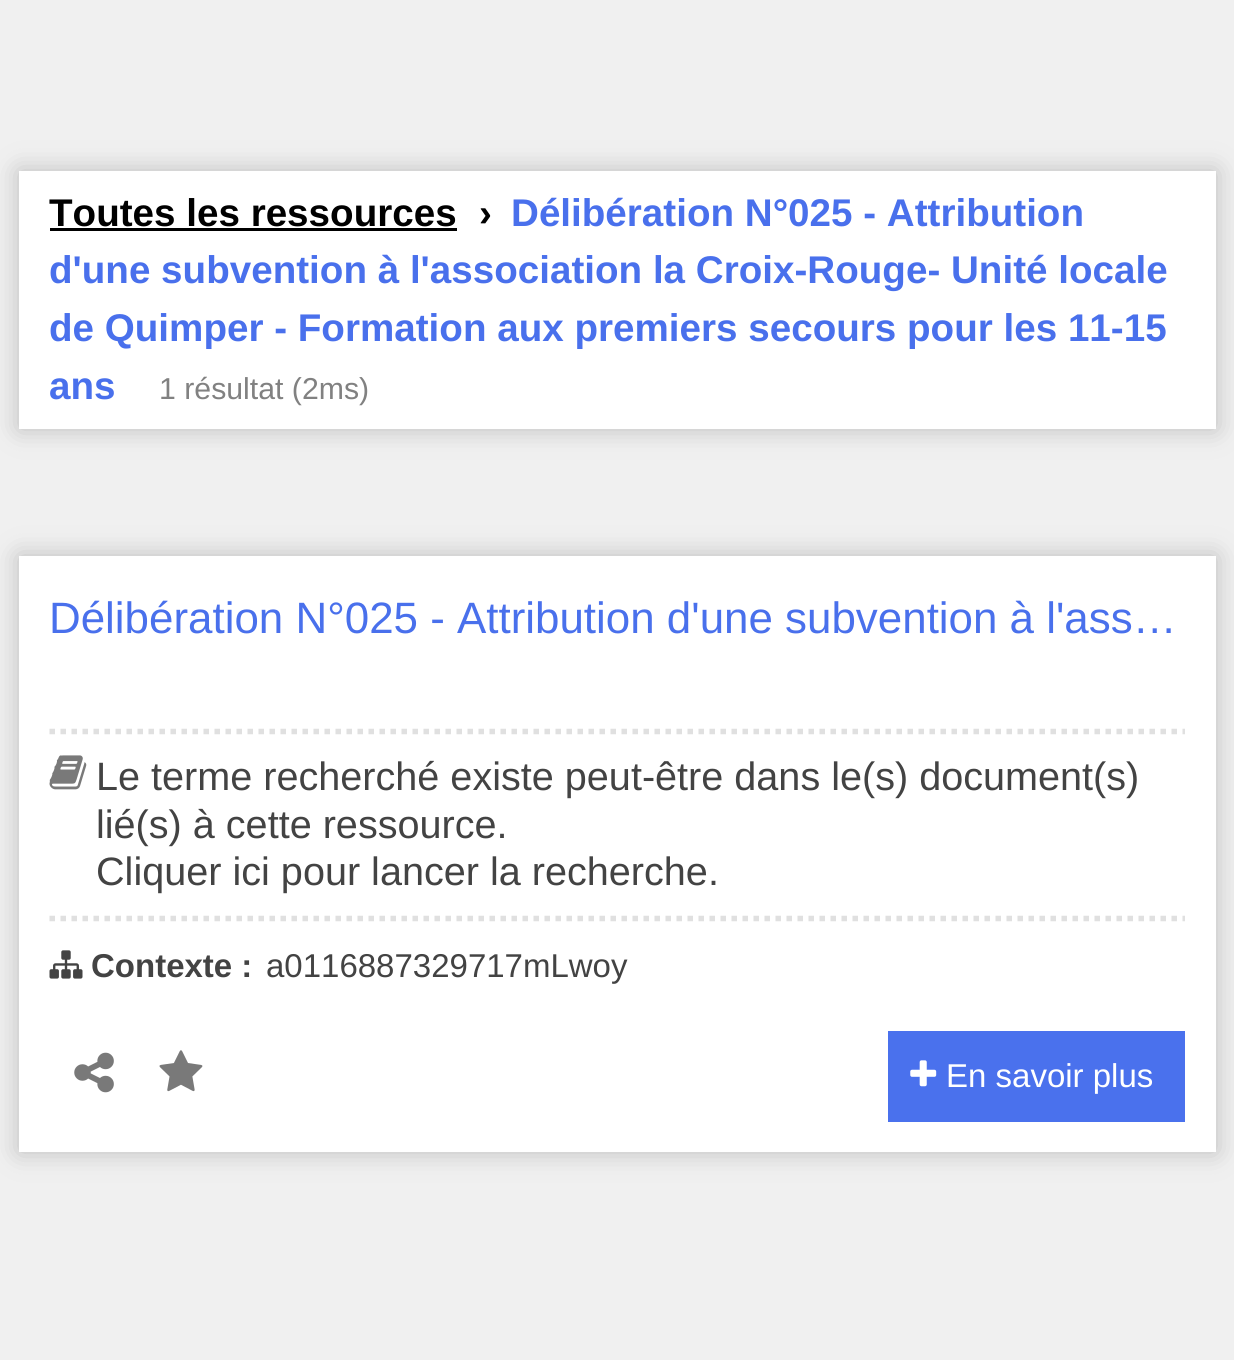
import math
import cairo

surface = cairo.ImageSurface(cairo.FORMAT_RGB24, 1234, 1360)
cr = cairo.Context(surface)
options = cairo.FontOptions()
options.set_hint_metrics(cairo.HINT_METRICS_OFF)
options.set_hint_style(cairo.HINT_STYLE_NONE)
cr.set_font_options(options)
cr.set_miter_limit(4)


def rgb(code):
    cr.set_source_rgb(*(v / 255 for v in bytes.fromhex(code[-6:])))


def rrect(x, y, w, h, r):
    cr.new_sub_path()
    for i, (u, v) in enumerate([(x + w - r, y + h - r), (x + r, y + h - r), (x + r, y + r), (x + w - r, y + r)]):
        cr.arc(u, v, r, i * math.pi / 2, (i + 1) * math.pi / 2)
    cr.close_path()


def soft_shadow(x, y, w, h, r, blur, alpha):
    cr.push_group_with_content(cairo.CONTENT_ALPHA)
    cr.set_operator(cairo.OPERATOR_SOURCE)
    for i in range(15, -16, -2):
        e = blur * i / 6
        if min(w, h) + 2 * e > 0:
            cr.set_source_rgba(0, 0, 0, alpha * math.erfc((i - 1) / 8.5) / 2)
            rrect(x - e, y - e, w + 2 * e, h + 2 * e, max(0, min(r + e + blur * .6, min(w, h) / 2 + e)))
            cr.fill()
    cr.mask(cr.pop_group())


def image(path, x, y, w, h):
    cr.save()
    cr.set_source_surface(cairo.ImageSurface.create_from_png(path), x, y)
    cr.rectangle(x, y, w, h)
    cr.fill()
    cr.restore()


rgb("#f0f0f0")
cr.paint()
rgb("#bbbbbb")
soft_shadow(19, 171, 1197, 258, 0, 12.5, 1)
rgb("#ffffff")
cr.rectangle(19, 171, 1197, 258)
cr.fill()
rgb("#000000")
cr.rectangle(50, 228, 407, 3)
cr.fill()
rgb("#bbbbbb")
soft_shadow(19, 556, 1197, 596, 0, 12.5, 1)
rgb("#ffffff")
cr.rectangle(19, 556, 1197, 596)
cr.fill()
cr.new_path()
cr.move_to(49.5, 731.5)
cr.line_to(1185, 731.5)
rgb("#e0e0e0")
cr.set_line_width(5.5)
cr.set_dash([5.5, 5.5])
cr.stroke()
image("img/1.png", 49, 755, 38, 35)
cr.new_path()
cr.move_to(49.5, 918.5)
cr.line_to(1185, 918.5)
cr.stroke()
image("img/2.png", 49, 950, 34, 29)
image("img/3.png", 74, 1052, 40, 41)
image("img/4.png", 159, 1050, 44, 42)
rgb("#4a71ed")
cr.rectangle(888, 1031, 297, 91)
cr.fill()
image("img/5.png", 910, 1060, 27, 27)
cr.select_font_face("Liberation Sans", cairo.FONT_SLANT_NORMAL, cairo.FONT_WEIGHT_BOLD)
cr.set_font_size(38.6)
rgb("#000000")
cr.move_to(49, 226)
cr.show_text("Toutes les ressources")
cr.move_to(479, 226)
cr.show_text("›")
rgb("#4970ec")
for x, y, s in [
    (511, 226, "Délibération N°025 - Attribution"),
    (49, 283, "d'une subvention à l'association la Croix-Rouge- Unité locale"),
    (49, 341, "de Quimper - Formation aux premiers secours pour les 11-15"),
    (49, 399, "ans"),
]:
    cr.move_to(x, y)
    cr.show_text(s)
cr.select_font_face("Liberation Sans")
cr.set_font_size(30.25)
rgb("#818181")
cr.move_to(159, 399)
cr.show_text("1 résultat (2ms)")
cr.set_font_size(43.9)
rgb("#4970ec")
cr.move_to(49, 633)
cr.show_text("Délibération N°025 - Attribution d'une subvention à l'ass…")
cr.set_font_size(39.6)
rgb("#434343")
for x, y, s in [
    (96, 790, "Le terme recherché existe peut-être dans le(s) document(s)"),
    (96, 838, "lié(s) à cette ressource."),
    (96, 885, "Cliquer ici pour lancer la recherche."),
]:
    cr.move_to(x, y)
    cr.show_text(s)
cr.select_font_face("Liberation Sans", cairo.FONT_SLANT_NORMAL, cairo.FONT_WEIGHT_BOLD)
cr.set_font_size(33)
cr.move_to(91, 977)
cr.show_text("Contexte :")
cr.select_font_face("Liberation Sans")
cr.move_to(266, 977)
cr.show_text("a0116887329717mLwoy")
rgb("#ffffff")
cr.move_to(946, 1087)
cr.show_text("En savoir plus")
surface.write_to_png("page.png")
